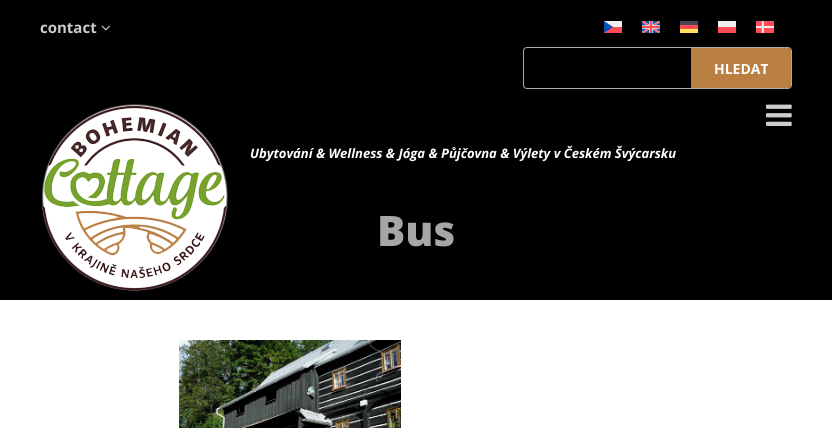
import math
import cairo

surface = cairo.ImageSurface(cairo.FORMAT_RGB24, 832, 428)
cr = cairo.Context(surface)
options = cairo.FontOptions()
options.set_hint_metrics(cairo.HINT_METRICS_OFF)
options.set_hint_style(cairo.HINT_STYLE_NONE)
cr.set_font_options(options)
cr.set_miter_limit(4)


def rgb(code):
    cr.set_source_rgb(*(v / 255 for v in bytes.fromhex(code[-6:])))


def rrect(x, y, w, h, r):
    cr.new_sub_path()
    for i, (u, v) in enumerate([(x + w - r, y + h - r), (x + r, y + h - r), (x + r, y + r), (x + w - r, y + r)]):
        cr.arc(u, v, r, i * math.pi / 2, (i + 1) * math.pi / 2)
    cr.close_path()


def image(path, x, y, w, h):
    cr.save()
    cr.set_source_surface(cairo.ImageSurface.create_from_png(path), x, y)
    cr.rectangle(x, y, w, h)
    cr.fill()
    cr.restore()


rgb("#ffffff")
cr.paint()
rgb("#000000")
cr.rectangle(0, 0, 832, 300)
cr.fill()
image("img/1.png", 101, 25, 9, 6)
image("img/2.png", 604, 21, 18, 12)
image("img/3.png", 642, 21, 18, 12)
for x, y, w, h, color in [
    (680, 21, 18, 4, "#464655"),
    (680, 25, 18, 4, "#ff4b55"),
    (680, 29, 18, 4, "#ffe15a"),
    (718, 21, 18, 6, "#f0f0f0"),
    (718, 27, 18, 6, "#ff4b55"),
]:
    rgb(color)
    cr.rectangle(x, y, w, h)
    cr.fill()
image("img/4.png", 756, 21, 18, 12)
rrect(523.5, 47.5, 268, 41, 3.5)
rgb("#aaaaaa")
cr.set_line_width(1)
cr.stroke()
rgb("#ba7f42")
cr.new_path()
cr.move_to(691, 48)
cr.line_to(788, 48)
cr.curve_to(789.5, 48, 791, 49.5, 791, 51)
cr.line_to(791, 85)
cr.curve_to(791, 86.5, 789.5, 88, 788, 88)
cr.line_to(691, 88)
cr.close_path()
cr.fill()
image("img/5.png", 41, 104, 187, 187)
image("img/6.png", 766, 104, 26, 22)
image("img/7.png", 179, 340, 222, 88)
cr.select_font_face("Open Sans", cairo.FONT_SLANT_NORMAL, cairo.FONT_WEIGHT_BOLD)
cr.set_font_size(15)
rgb("#cccccc")
cr.move_to(40, 33)
cr.show_text("contact")
cr.set_font_size(14)
rgb("#ffffff")
cr.move_to(714, 74)
cr.show_text("HLEDAT")
cr.select_font_face("Open Sans", cairo.FONT_SLANT_ITALIC, cairo.FONT_WEIGHT_BOLD)
cr.set_font_size(13)
cr.move_to(250, 158)
cr.show_text("Ubytování & Wellness & Jóga & Půjčovna & Výlety v Českém Švýcarsku")
cr.select_font_face("Open Sans ExtraBold")
cr.set_font_size(42)
rgb("#a6a6a6")
cr.move_to(377, 246)
cr.show_text("Bus")
surface.write_to_png("page.png")
